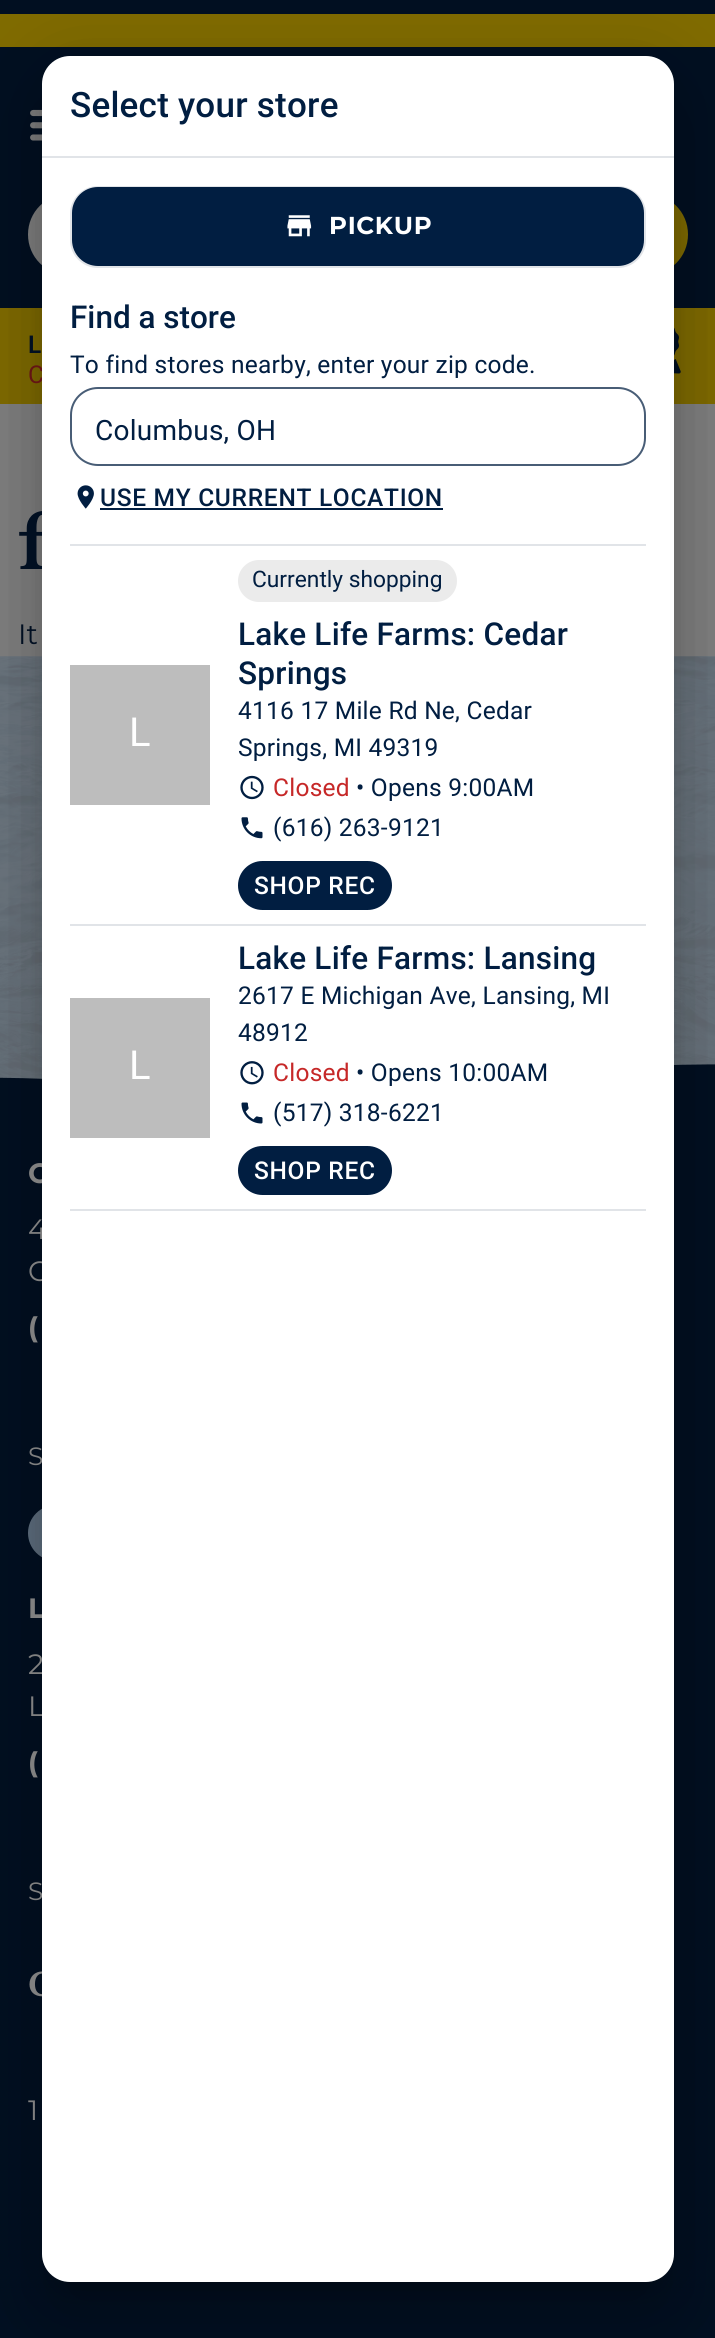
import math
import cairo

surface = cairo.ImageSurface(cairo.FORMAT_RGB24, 715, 2338)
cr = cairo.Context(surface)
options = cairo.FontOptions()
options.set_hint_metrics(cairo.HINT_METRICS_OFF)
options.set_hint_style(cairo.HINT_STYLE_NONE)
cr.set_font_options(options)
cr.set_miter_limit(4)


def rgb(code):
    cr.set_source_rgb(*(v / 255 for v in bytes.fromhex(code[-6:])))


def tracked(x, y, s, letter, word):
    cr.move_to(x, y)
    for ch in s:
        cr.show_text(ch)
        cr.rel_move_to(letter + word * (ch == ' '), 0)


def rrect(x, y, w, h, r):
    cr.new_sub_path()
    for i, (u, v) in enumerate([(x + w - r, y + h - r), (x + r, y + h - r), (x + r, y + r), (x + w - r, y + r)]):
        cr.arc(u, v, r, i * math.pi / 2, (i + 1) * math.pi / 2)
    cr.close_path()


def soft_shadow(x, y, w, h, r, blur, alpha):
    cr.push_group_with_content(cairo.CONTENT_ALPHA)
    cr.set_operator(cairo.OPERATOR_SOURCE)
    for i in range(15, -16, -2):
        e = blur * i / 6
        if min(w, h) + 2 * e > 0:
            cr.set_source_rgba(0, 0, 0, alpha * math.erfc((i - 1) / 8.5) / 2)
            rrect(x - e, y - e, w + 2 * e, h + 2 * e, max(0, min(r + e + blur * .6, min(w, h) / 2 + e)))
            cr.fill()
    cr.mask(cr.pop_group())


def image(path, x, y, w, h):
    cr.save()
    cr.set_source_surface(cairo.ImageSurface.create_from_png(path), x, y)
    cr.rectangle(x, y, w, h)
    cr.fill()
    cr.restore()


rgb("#808080")
cr.paint()
rgb("#010f21")
cr.rectangle(0, 0, 715, 308)
cr.fill()
rgb("#806b00")
cr.rectangle(0, 14, 715, 33)
cr.fill()
image("img/1.png", 30, 109, 12, 32)
rgb("#808080")
cr.new_path()
cr.move_to(68.5, 194)
cr.line_to(529, 194)
cr.curve_to(544.5, 194, 557, 206.5, 557, 222)
cr.line_to(557, 247)
cr.curve_to(557, 262.5, 544.5, 275, 529, 275)
cr.line_to(68.5, 275)
cr.curve_to(46, 275, 28, 257, 28, 234.5)
cr.curve_to(28, 212, 46, 194, 68.5, 194)
cr.close_path()
cr.fill()
rgb("#806b00")
cr.new_path()
cr.move_to(557, 194)
cr.line_to(647.5, 194)
cr.curve_to(670, 194, 688, 212, 688, 234.5)
cr.curve_to(688, 257, 670, 275, 647.5, 275)
cr.line_to(557, 275)
cr.close_path()
cr.fill()
cr.rectangle(0, 308, 715, 96)
cr.fill()
image("img/2.png", 674, 327, 7, 47)
image("img/9.png", 0, 656, 715, 423)
rgb("#010f21")
cr.new_path()
cr.move_to(275, 1097)
cr.curve_to(367, 1100, 458, 1081, 549, 1072)
cr.curve_to(620, 1066, 691, 1063, 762, 1065)
cr.curve_to(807, 1066, 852, 1069, 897, 1075)
cr.line_to(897, 1099)
cr.line_to(-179, 1099)
cr.line_to(-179, 1088)
cr.curve_to(-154, 1085, -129, 1082, -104, 1081)
cr.curve_to(-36, 1076, 32, 1077, 100, 1082)
cr.line_to(176, 1090)
cr.curve_to(209, 1093, 242, 1096, 275, 1097)
cr.close_path()
cr.fill()
cr.rectangle(0, 1097, 715, 1241)
cr.fill()
rgb("#5f6f80")
cr.arc(56, 1533, 28, 0, 2 * math.pi)
cr.fill()
rgb("#000000")
soft_shadow(28, 58, 660, 2254, 42, 40, 0.12)
soft_shadow(37, 93, 642, 2236, 33, 33, 0.14)
soft_shadow(54, 88, 608, 2201, 16, 13, 0.2)
cr.select_font_face("Roboto SemiBold")
cr.set_font_size(24.5)
rgb("#010f21")
tracked(28, 353, "L", 0.25, 0)
cr.select_font_face("Roboto")
rgb("#631414")
tracked(28, 383, "C", 0.25, 0)
cr.select_font_face("Libre Baskerville", cairo.FONT_SLANT_NORMAL, cairo.FONT_WEIGHT_BOLD)
cr.set_font_size(70)
rgb("#010f21")
cr.move_to(18, 569)
cr.show_text("f")
cr.select_font_face("Montserrat")
cr.set_font_size(28)
cr.move_to(18, 644)
cr.show_text("It")
cr.select_font_face("Montserrat", cairo.FONT_SLANT_NORMAL, cairo.FONT_WEIGHT_BOLD)
rgb("#808080")
cr.move_to(28, 1183)
cr.show_text("C")
cr.select_font_face("Montserrat")
cr.move_to(28, 1239)
cr.show_text("4")
cr.move_to(28, 1281)
cr.show_text("C")
cr.select_font_face("Montserrat", cairo.FONT_SLANT_NORMAL, cairo.FONT_WEIGHT_BOLD)
cr.move_to(28, 1337)
cr.show_text("(")
cr.select_font_face("Montserrat")
cr.set_font_size(25)
cr.move_to(28, 1465)
cr.show_text("S")
cr.select_font_face("Montserrat", cairo.FONT_SLANT_NORMAL, cairo.FONT_WEIGHT_BOLD)
cr.set_font_size(28)
cr.move_to(28, 1618)
cr.show_text("L")
cr.select_font_face("Montserrat")
cr.move_to(28, 1674)
cr.show_text("2")
cr.move_to(28, 1716)
cr.show_text("L")
cr.select_font_face("Montserrat", cairo.FONT_SLANT_NORMAL, cairo.FONT_WEIGHT_BOLD)
cr.move_to(28, 1772)
cr.show_text("(")
cr.select_font_face("Montserrat")
cr.set_font_size(25)
cr.move_to(28, 1900)
cr.show_text("S")
cr.select_font_face("Libre Baskerville", cairo.FONT_SLANT_NORMAL, cairo.FONT_WEIGHT_BOLD)
cr.set_font_size(31.5)
cr.move_to(28, 1996)
cr.show_text("C")
rgb("#ffffff")
rrect(42, 56, 632, 2226, 28)
cr.fill()
rrect(71, 187, 574, 80, 27)
rgb("#e1e4e8")
cr.stroke()
rgb("#011e41")
rrect(72, 187, 572, 79, 26)
cr.fill()
image("img/3.png", 287, 215, 25, 22)
cr.select_font_face("Montserrat", cairo.FONT_SLANT_NORMAL, cairo.FONT_WEIGHT_BOLD)
cr.set_font_size(24.5)
rgb("#ffffff")
tracked(329, 234, "PICKUP", 0.7, 0)
rgb("#011e41")
rrect(238, 1146, 154, 49, 24.5)
cr.fill()
cr.select_font_face("Roboto Medium")
rgb("#ffffff")
tracked(254, 1179, "SHOP REC", 0.7, 0)
rgb("#bdbdbd")
cr.rectangle(70, 998, 140, 140)
cr.fill()
cr.select_font_face("Roboto")
cr.set_font_size(40)
rgb("#ffffff")
cr.move_to(129, 1079)
cr.show_text("L")
image("img/8.png", 241, 1102, 22, 22)
cr.set_font_size(24.5)
rgb("#011e41")
tracked(356, 1081, "• Opens 10:00AM", 0.25, 0)
rgb("#c62828")
tracked(273, 1081, "Closed", 0.25, 0)
image("img/7.png", 240, 1061, 24, 24)
rgb("#011e41")
for x, y, s in [
    (273, 1121, "(517) 318-6221"),
    (238, 1041, "48912"),
    (238, 1004, "2617 E Michigan Ave, Lansing, MI"),
]:
    tracked(x, y, s, 0.25, 0)
cr.select_font_face("Roboto Medium")
cr.set_font_size(31.5)
tracked(238, 969, "Lake Life Farms: Lansing", 0.25, 0)
rgb("#e1e4e8")
cr.rectangle(70, 1209, 576, 2)
cr.fill()
rgb("#011e41")
rrect(238, 861, 154, 49, 24.5)
cr.fill()
cr.set_font_size(24.5)
rgb("#ffffff")
tracked(254, 894, "SHOP REC", 0.7, 0)
rgb("#bdbdbd")
cr.rectangle(70, 665, 140, 140)
cr.fill()
cr.select_font_face("Roboto")
cr.set_font_size(40)
rgb("#ffffff")
cr.move_to(129, 746)
cr.show_text("L")
image("img/6.png", 241, 817, 22, 22)
cr.set_font_size(24.5)
rgb("#011e41")
tracked(356, 796, "• Opens 9:00AM", 0.25, 0)
rgb("#c62828")
tracked(273, 796, "Closed", 0.25, 0)
image("img/5.png", 240, 775, 24, 25)
rgb("#ebebeb")
rrect(238, 560, 219, 42, 21)
cr.fill()
cr.set_font_size(22.75)
rgb("#011e41")
cr.move_to(252, 587)
cr.show_text("Currently shopping")
cr.set_font_size(24.5)
for x, y, s in [
    (273, 836, "(616) 263-9121"),
    (238, 756, "Springs, MI 49319"),
    (238, 719, "4116 17 Mile Rd Ne, Cedar"),
]:
    tracked(x, y, s, 0.25, 0)
cr.select_font_face("Roboto Medium")
cr.set_font_size(31.5)
tracked(238, 684, "Springs", 0.25, 0)
tracked(238, 645, "Lake Life Farms: Cedar", 0.25, 0)
rgb("#e1e4e8")
cr.rectangle(70, 924, 576, 2)
cr.fill()
image("img/4.png", 77, 485, 17, 24)
cr.set_font_size(24.5)
rgb("#011e41")
tracked(100, 506, "USE MY CURRENT LOCATION", 0.7, 0)
cr.rectangle(100, 508, 343, 2)
cr.fill()
rrect(71, 388, 574, 77, 27)
rgb("#485d76")
cr.stroke()
cr.select_font_face("Roboto")
cr.set_font_size(28)
rgb("#011e41")
tracked(95, 440, "Columbus, OH", 0.25, 0)
cr.set_font_size(24.5)
tracked(70, 373, "To find stores nearby, enter your zip code.", 0.25, 0)
cr.select_font_face("Roboto Medium")
cr.set_font_size(31.5)
cr.move_to(70, 328)
cr.show_text("Find a store")
cr.set_font_size(35)
tracked(70, 117, "Select your store", 0.25, 0)
rgb("#e1e4e8")
cr.rectangle(70, 544, 576, 2)
cr.fill()
cr.rectangle(42, 156, 632, 2)
cr.fill()
cr.select_font_face("Montserrat")
cr.set_font_size(28)
rgb("#808080")
cr.move_to(28, 2120)
cr.show_text("1")
surface.write_to_png("page.png")
